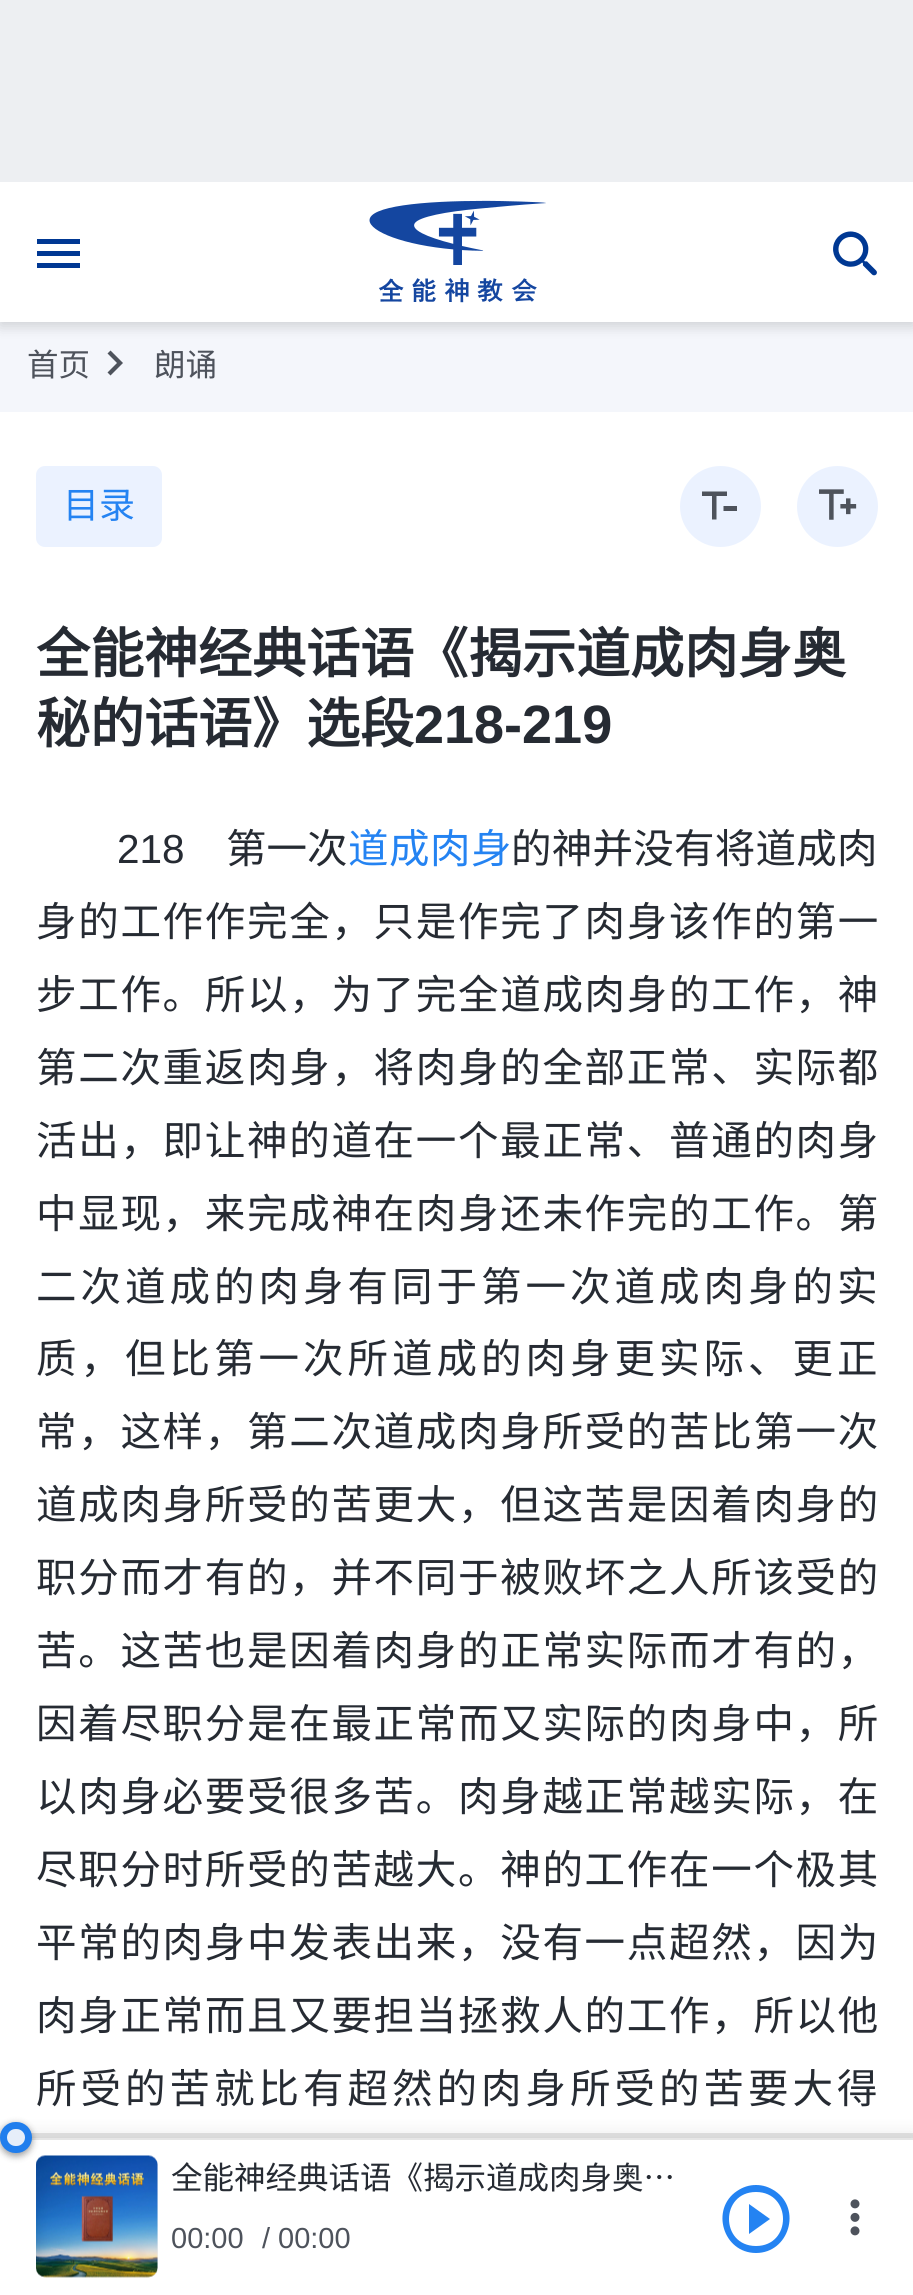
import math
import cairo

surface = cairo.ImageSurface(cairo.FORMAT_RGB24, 913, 2295)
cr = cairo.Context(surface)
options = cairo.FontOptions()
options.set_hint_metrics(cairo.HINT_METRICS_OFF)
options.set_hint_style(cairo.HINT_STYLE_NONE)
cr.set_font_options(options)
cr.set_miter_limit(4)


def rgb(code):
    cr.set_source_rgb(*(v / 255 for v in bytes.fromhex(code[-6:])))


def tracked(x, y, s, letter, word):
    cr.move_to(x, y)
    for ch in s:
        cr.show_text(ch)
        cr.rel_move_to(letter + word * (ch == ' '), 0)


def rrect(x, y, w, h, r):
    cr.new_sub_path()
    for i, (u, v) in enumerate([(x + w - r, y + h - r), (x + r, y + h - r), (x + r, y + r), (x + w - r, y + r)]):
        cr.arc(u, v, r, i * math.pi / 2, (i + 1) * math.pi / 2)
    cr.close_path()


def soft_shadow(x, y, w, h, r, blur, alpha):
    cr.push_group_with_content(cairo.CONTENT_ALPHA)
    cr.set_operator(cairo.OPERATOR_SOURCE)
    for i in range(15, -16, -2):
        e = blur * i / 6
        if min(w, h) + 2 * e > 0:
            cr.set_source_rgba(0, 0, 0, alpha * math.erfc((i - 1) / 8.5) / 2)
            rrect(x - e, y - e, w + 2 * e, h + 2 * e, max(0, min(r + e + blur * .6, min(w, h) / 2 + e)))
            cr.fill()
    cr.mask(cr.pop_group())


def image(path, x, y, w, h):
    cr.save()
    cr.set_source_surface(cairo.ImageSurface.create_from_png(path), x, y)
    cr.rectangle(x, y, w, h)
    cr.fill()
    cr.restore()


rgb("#ffffff")
cr.paint()
rgb("#f4f6fb")
cr.rectangle(0, 322, 913, 90)
cr.fill()
rgb("#000000")
soft_shadow(0, 187, 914, 139, 0, 7, 0.16)
rgb("#edeff2")
cr.rectangle(0, 0, 913, 182)
cr.fill()
rgb("#ffffff")
cr.rectangle(0, 182, 913, 140)
cr.fill()
rgb("#003893")
cr.new_path()
cr.move_to(37, 268)
cr.line_to(80, 268)
cr.line_to(80, 263)
cr.line_to(37, 263)
cr.close_path()
cr.move_to(37, 256)
cr.line_to(80, 256)
cr.line_to(80, 251)
cr.line_to(37, 251)
cr.close_path()
cr.move_to(37, 239)
cr.line_to(37, 244)
cr.line_to(80, 244)
cr.line_to(80, 239)
cr.close_path()
cr.fill()
image("img/1.png", 369, 200, 177, 103)
image("img/2.png", 833, 231, 44, 45)
rgb("#4e535c")
cr.new_path()
cr.move_to(110.5, 350.5)
cr.line_to(107.5, 353.5)
cr.line_to(117, 363)
cr.line_to(107.5, 372.5)
cr.line_to(110.5, 375.5)
cr.line_to(123, 363)
cr.close_path()
cr.fill()
rgb("#ebf2ff")
rrect(36, 466, 126, 81, 9)
cr.fill()
cr.arc(720.5, 506.5, 40.5, 0, 2 * math.pi)
cr.fill()
rgb("#4e535c")
cr.new_path()
cr.move_to(712, 519.5)
cr.line_to(712, 496)
cr.line_to(702, 496)
cr.line_to(702, 491.5)
cr.line_to(727, 491.5)
cr.line_to(727, 496)
cr.line_to(716.5, 496)
cr.line_to(716.5, 519.5)
cr.close_path()
cr.move_to(723.5, 511)
cr.line_to(723.5, 506)
cr.line_to(737, 506)
cr.line_to(737, 511)
cr.close_path()
cr.fill()
rgb("#ebf2ff")
cr.arc(837.5, 506.5, 40.5, 0, 2 * math.pi)
cr.fill()
image("img/3.png", 819, 489, 38, 31)
rgb("#000000")
soft_shadow(0, 2135, 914, 158, 0, 9, 0.1)
rgb("#ffffff")
cr.rectangle(0, 2138, 913, 157)
cr.fill()
rgb("#edeff2")
rrect(36, 2156, 122, 121, 9)
cr.fill()
image("img/4.png", 36, 2155, 122, 123)
cr.set_source_rgba(0, 0, 0, 0.1)
cr.rectangle(0, 2133, 913, 7)
cr.fill()
rgb("#000000")
soft_shadow(0, 2124, 32, 32, 16, 3.5, 0.38)
rgb("#ffffff")
rrect(3.5, 2125.5, 25, 24, 12)
cr.fill_preserve()
rgb("#2483f2")
cr.set_line_width(7)
cr.stroke()
cr.set_source_rgba(0.02, 0.314, 0.749, 0.1)
rrect(0, 2122, 32, 31, 15.5)
cr.fill()
rgb("#2483f2")
cr.new_path()
cr.move_to(749, 2234)
cr.line_to(770, 2219)
cr.line_to(749, 2204)
cr.close_path()
cr.move_to(756, 2185)
cr.curve_to(749, 2185, 743, 2187, 737, 2191)
cr.curve_to(710, 2209, 723, 2253, 756, 2253)
cr.curve_to(789, 2253, 802, 2209, 775, 2191)
cr.curve_to(769, 2187, 763, 2185, 756, 2185)
cr.close_path()
cr.move_to(756, 2246)
cr.curve_to(720, 2246, 720, 2192, 756, 2192)
cr.curve_to(792, 2192, 792, 2246, 756, 2246)
cr.close_path()
cr.fill()
image("img/5.png", 850, 2199, 10, 37)
cr.select_font_face("Noto Sans CJK SC")
cr.set_font_size(31.5)
rgb("#4e535c")
cr.move_to(27, 376)
cr.show_text("首页")
cr.move_to(154, 376)
cr.show_text("朗诵")
cr.set_font_size(36)
rgb("#2483f2")
cr.move_to(63, 518)
cr.show_text("目录")
cr.select_font_face("Noto Sans CJK SC", cairo.FONT_SLANT_NORMAL, cairo.FONT_WEIGHT_BOLD)
cr.set_font_size(54)
rgb("#262b33")
cr.move_to(36, 673)
cr.show_text("全能神经典话语《揭示道成肉身奥")
cr.move_to(36, 743)
cr.show_text("秘的话语》选段")
cr.select_font_face("Liberation Sans", cairo.FONT_SLANT_NORMAL, cairo.FONT_WEIGHT_BOLD)
cr.move_to(414, 743)
cr.show_text("218-219")
cr.select_font_face("Liberation Sans")
cr.set_font_size(40.5)
cr.move_to(117, 863)
cr.show_text("218")
cr.select_font_face("Noto Sans CJK SC")
cr.move_to(226, 863)
cr.show_text("第一次")
rgb("#2483f2")
tracked(348, 863, "道成肉身", 0.5, 0)
rgb("#262b33")
tracked(511, 863, "的神并没有将道成肉", 0.25, 0)
for x, y, s in [
    (36, 936, "身的工作作完全，只是作完了肉身该作的第一"),
    (36, 1009, "步工作。所以，为了完全道成肉身的工作，神"),
    (36, 1082, "第二次重返肉身，将肉身的全部正常、实际都"),
    (36, 1155, "活出，即让神的道在一个最正常、普通的肉身"),
    (36, 1228, "中显现，来完成神在肉身还未作完的工作。第"),
]:
    tracked(x, y, s, 1.7, 0)
tracked(36, 1301, "二次道成的肉身有同于第一次道成肉身的实", 4, 0)
tracked(36, 1373, "质，但比第一次所道成的肉身更实际、更正", 4, 0)
for x, y, s in [
    (36, 1446, "常，这样，第二次道成肉身所受的苦比第一次"),
    (36, 1519, "道成肉身所受的苦更大，但这苦是因着肉身的"),
    (36, 1592, "职分而才有的，并不同于被败坏之人所该受的"),
    (36, 1665, "苦。这苦也是因着肉身的正常实际而才有的，"),
    (36, 1738, "因着尽职分是在最正常而又实际的肉身中，所"),
    (36, 1811, "以肉身必要受很多苦。肉身越正常越实际，在"),
    (36, 1884, "尽职分时所受的苦越大。神的工作在一个极其"),
    (36, 1957, "平常的肉身中发表出来，没有一点超然，因为"),
    (36, 2030, "肉身正常而且又要担当拯救人的工作，所以他"),
]:
    tracked(x, y, s, 1.7, 0)
tracked(36, 2103, "所受的苦就比有超然的肉身所受的苦要大得", 4, 0)
cr.set_font_size(31.5)
cr.move_to(171, 2189)
cr.show_text("全能神经典话语《揭示道成肉身奥…")
cr.select_font_face("Liberation Sans")
cr.set_font_size(29)
rgb("#4e535c")
for x, y, s in [
    (171, 2248, "00:00"),
    (262, 2248, "/"),
    (278, 2248, "00:00"),
]:
    cr.move_to(x, y)
    cr.show_text(s)
surface.write_to_png("page.png")
